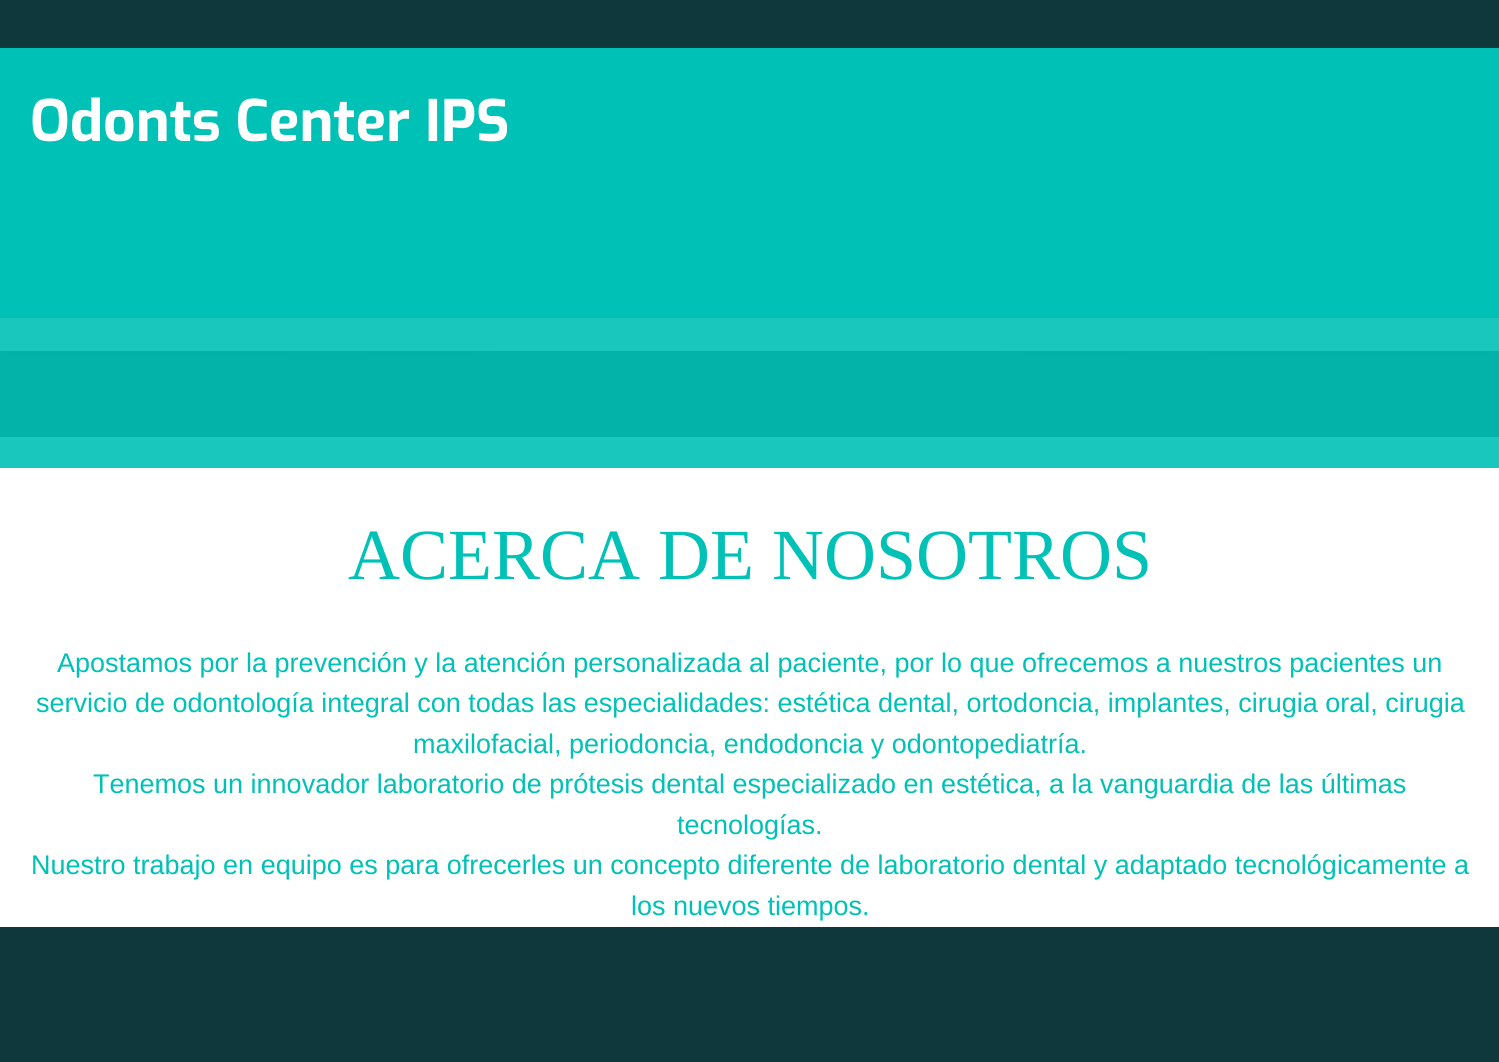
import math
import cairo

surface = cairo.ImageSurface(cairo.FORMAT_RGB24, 1499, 1062)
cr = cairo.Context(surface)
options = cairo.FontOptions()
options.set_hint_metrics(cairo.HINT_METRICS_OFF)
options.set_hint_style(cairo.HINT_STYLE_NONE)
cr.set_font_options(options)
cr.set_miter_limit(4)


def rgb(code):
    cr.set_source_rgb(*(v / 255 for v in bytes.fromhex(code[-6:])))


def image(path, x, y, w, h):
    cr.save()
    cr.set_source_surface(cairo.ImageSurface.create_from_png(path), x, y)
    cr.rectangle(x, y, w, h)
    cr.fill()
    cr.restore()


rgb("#ffffff")
cr.paint()
for x, y, w, h, color in [
    (0, 318, 1499, 150, "#19c7bd"),
    (0, 0, 1499, 48, "#0f383d"),
    (0, 48, 1499, 270, "#00c1b6"),
    (0, 351, 1499, 86, "#03b3aa"),
]:
    rgb(color)
    cr.rectangle(x, y, w, h)
    cr.fill()
image("img/1.png", 0, 351, 1499, 13)
rgb("#0f383d")
cr.rectangle(0, 927, 1499, 135)
cr.fill()
cr.select_font_face("Exo", cairo.FONT_SLANT_NORMAL, cairo.FONT_WEIGHT_BOLD)
cr.set_font_size(57)
rgb("#ffffff")
cr.move_to(30, 141)
cr.show_text("Odonts Center IPS")
cr.select_font_face("Liberation Serif")
cr.set_font_size(72)
rgb("#00c1b6")
cr.move_to(348, 579)
cr.show_text("ACERCA DE NOSOTROS")
cr.select_font_face("Liberation Sans")
cr.set_font_size(27)
for x, y, s in [
    (57, 672, "Apostamos por la prevención y la atención personalizada al paciente, por lo que ofrecemos a nuestros pacientes un"),
    (36, 712, "servicio de odontología integral con todas las especialidades: estética dental, ortodoncia, implantes, cirugia oral, cirugia"),
    (413, 753, "maxilofacial, periodoncia, endodoncia y odontopediatría."),
    (93, 793, "Tenemos un innovador laboratorio de prótesis dental especializado en estética, a la vanguardia de las últimas"),
    (677, 834, "tecnologías."),
    (31, 874, "Nuestro trabajo en equipo es para ofrecerles un concepto diferente de laboratorio dental y adaptado tecnológicamente a"),
    (631, 915, "los nuevos tiempos."),
]:
    cr.move_to(x, y)
    cr.show_text(s)
surface.write_to_png("page.png")
